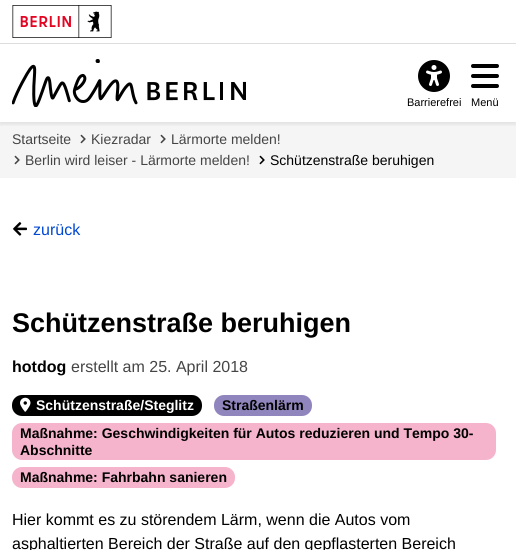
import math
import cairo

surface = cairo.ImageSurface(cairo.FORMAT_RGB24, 516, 550)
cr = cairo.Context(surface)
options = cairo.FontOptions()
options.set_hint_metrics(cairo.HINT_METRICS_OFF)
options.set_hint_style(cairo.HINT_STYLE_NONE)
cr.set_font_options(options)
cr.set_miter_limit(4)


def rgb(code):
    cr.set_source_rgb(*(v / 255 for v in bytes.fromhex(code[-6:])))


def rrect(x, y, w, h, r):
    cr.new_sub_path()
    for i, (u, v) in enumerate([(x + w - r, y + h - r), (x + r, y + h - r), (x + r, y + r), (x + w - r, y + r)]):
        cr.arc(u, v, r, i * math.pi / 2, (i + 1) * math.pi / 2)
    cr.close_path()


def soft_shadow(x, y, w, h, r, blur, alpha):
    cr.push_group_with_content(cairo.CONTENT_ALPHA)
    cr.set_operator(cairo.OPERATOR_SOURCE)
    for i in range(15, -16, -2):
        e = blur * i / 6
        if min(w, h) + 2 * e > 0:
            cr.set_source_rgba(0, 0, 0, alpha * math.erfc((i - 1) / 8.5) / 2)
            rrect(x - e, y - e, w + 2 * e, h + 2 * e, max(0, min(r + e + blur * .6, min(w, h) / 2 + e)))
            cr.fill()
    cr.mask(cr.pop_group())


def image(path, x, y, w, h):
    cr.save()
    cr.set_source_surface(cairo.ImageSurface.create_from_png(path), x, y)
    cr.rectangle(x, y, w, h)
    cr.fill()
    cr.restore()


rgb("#ffffff")
cr.paint()
rgb("#dddddd")
cr.rectangle(0, 43, 516, 1)
cr.fill()
rgb("#f5f5f5")
cr.rectangle(0, 122, 516, 56)
cr.fill()
cr.save()
cr.rectangle(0, 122, 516, 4)
cr.clip()
rgb("#000000")
soft_shadow(0, 46, 516, 78, 0, 2.5, 0.1)
cr.restore()
image("img/1.png", 12, 5, 100, 33)
image("img/2.png", 12, 59, 234, 48)
image("img/3.png", 418, 60, 32, 32)
image("img/4.png", 471, 64, 28, 24)
image("img/5.png", 80, 134, 6, 10)
image("img/5.png", 160, 134, 6, 10)
image("img/5.png", 14, 155, 6, 10)
image("img/6.png", 259, 155, 6, 10)
image("img/7.png", 13, 222, 14, 14)
rgb("#000000")
rrect(12, 395, 190, 21, 10)
cr.fill()
image("img/8.png", 20, 397, 11, 15)
rgb("#9185be")
rrect(214, 395, 98, 21, 10)
cr.fill()
rgb("#f6b4cc")
rrect(12, 423, 484, 37, 10)
cr.fill()
rrect(12, 467, 223, 21, 10)
cr.fill()
cr.select_font_face("Liberation Sans")
cr.set_font_size(11)
rgb("#000000")
cr.move_to(407, 106)
cr.show_text("Barrierefrei")
cr.move_to(471, 106)
cr.show_text("Menü")
cr.set_font_size(14)
rgb("#454545")
for x, y, s in [
    (12, 144, "Startseite"),
    (91, 144, "Kiezradar"),
    (171, 144, "Lärmorte melden!"),
    (25, 165, "Berlin wird leiser - Lärmorte melden!"),
]:
    cr.move_to(x, y)
    cr.show_text(s)
rgb("#000000")
cr.move_to(270, 165)
cr.show_text("Schützenstraße beruhigen")
cr.set_font_size(16)
rgb("#0047d3")
cr.move_to(33, 235)
cr.show_text("zurück")
cr.select_font_face("Liberation Sans", cairo.FONT_SLANT_NORMAL, cairo.FONT_WEIGHT_BOLD)
cr.set_font_size(27)
rgb("#000000")
cr.move_to(12, 332)
cr.show_text("Schützenstraße beruhigen")
cr.set_font_size(16)
cr.move_to(12, 372)
cr.show_text("hotdog")
cr.select_font_face("Liberation Sans")
rgb("#454545")
cr.move_to(71, 372)
cr.show_text("erstellt am 25. April 2018")
cr.select_font_face("Liberation Sans", cairo.FONT_SLANT_NORMAL, cairo.FONT_WEIGHT_BOLD)
cr.set_font_size(14)
rgb("#ffffff")
cr.move_to(36, 410)
cr.show_text("Schützenstraße/Steglitz")
rgb("#000000")
for x, y, s in [
    (222, 410, "Straßenlärm"),
    (20, 438, "Maßnahme: Geschwindigkeiten für Autos reduzieren und Tempo 30-"),
    (20, 455, "Abschnitte"),
    (20, 482, "Maßnahme: Fahrbahn sanieren"),
]:
    cr.move_to(x, y)
    cr.show_text(s)
cr.select_font_face("Liberation Sans")
cr.set_font_size(16)
cr.move_to(12, 525)
cr.show_text("Hier kommt es zu störendem Lärm, wenn die Autos vom")
cr.move_to(12, 549)
cr.show_text("asphaltierten Bereich der Straße auf den gepflasterten Bereich")
surface.write_to_png("page.png")
